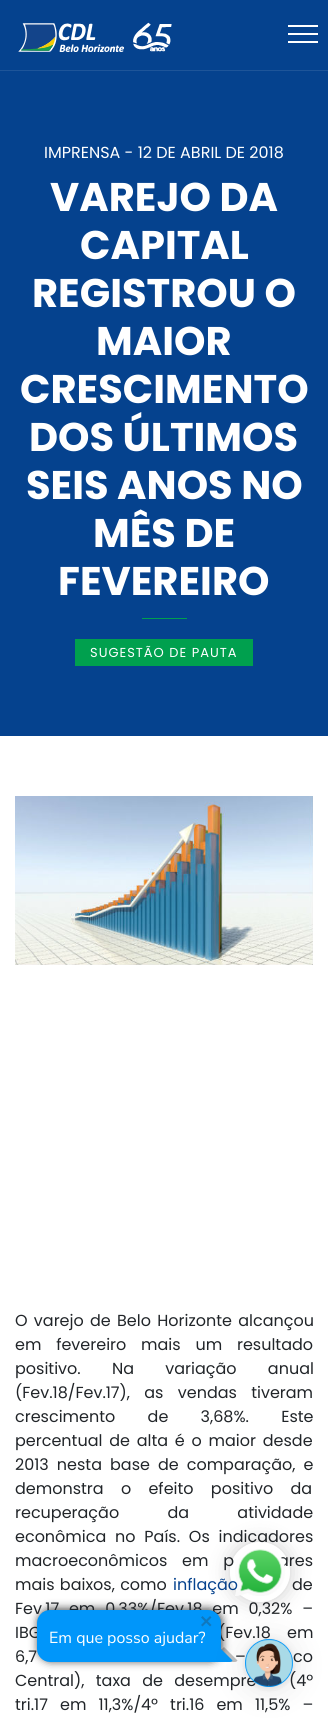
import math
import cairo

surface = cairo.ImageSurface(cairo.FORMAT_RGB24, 328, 1722)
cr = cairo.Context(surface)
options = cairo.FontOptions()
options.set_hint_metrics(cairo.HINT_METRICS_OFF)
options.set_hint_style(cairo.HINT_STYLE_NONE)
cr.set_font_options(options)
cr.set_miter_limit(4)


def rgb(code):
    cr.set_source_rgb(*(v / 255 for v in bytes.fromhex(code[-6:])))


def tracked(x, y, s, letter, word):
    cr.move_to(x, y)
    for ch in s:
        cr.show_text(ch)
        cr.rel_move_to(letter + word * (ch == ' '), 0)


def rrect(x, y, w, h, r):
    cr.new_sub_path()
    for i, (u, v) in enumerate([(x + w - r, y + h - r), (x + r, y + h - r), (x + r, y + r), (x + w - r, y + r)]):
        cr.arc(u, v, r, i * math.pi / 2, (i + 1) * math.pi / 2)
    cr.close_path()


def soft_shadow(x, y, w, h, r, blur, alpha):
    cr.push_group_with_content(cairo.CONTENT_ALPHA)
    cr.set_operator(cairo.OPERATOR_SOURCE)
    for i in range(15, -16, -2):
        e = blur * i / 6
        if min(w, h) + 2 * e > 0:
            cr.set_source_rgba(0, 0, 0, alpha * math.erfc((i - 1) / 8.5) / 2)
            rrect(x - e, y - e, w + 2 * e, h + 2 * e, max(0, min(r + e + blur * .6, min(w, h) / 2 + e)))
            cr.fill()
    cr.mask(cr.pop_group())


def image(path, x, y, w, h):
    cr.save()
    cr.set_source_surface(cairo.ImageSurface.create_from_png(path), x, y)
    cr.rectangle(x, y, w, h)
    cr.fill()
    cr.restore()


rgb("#ffffff")
cr.paint()
rgb("#05428e")
cr.rectangle(0, 0, 328, 70)
cr.fill()
rgb("#1e5599")
cr.rectangle(0, 70, 328, 1)
cr.fill()
image("img/1.png", 18, 22, 154, 30)
for x, y, w, h, color in [
    (288, 25, 30, 2, "#ffffff"),
    (288, 33, 30, 2, "#ffffff"),
    (288, 41, 30, 2, "#ffffff"),
    (0, 71, 328, 665, "#05428e"),
    (142, 618, 45, 1, "#00a04e"),
    (75, 639, 178, 27, "#00a04e"),
]:
    rgb(color)
    cr.rectangle(x, y, w, h)
    cr.fill()
image("img/2.png", 15, 796, 298, 169)
rgb("#000000")
soft_shadow(38, 1609, 184, 52, 13, 4.5, 0.75)
cr.select_font_face("Poppins")
cr.set_font_size(16)
rgb("#ffffff")
cr.move_to(44, 158)
cr.show_text("IMPRENSA - 12 DE ABRIL DE 2018")
cr.select_font_face("Poppins", cairo.FONT_SLANT_NORMAL, cairo.FONT_WEIGHT_BOLD)
cr.set_font_size(40)
for x, y, s in [
    (50, 211, "VAREJO DA"),
    (80, 259, "CAPITAL"),
    (32, 307, "REGISTROU O"),
    (96, 355, "MAIOR"),
    (20, 403, "CRESCIMENTO"),
    (29, 451, "DOS ÚLTIMOS"),
    (26, 499, "SEIS ANOS NO"),
    (93, 547, "MÊS DE"),
    (58, 595, "FEVEREIRO"),
]:
    cr.move_to(x, y)
    cr.show_text(s)
cr.select_font_face("Poppins")
cr.set_font_size(13)
tracked(90, 657, "SUGESTÃO DE PAUTA", 1, 0)
cr.set_font_size(16)
rgb("#212529")
tracked(15, 1326, "O varejo de Belo Horizonte alcançou", 0, 2)
tracked(15, 1350, "em fevereiro mais um resultado", 0, 10.5)
tracked(15, 1374, "positivo. Na variação anual", 0, 27)
tracked(15, 1398, "(Fev.18/Fev.17), as vendas tiveram", 0, 10)
tracked(15, 1422, "crescimento de 3,68%. Este", 0, 28)
tracked(15, 1446, "percentual de alta é o maior desde", 0, 2.5)
tracked(15, 1470, "2013 nesta base de comparação, e", 0, 3.75)
tracked(15, 1494, "demonstra o efeito positivo da", 0, 13)
tracked(15, 1518, "recuperação da atividade", 0, 44)
tracked(15, 1542, "econômica no País. Os indicadores", 0, 4.5)
tracked(15, 1566, "macroeconômicos em p", 0, 10.5)
tracked(278, 1566, "ares", 0, 10.5)
tracked(15, 1590, "mais baixos, como", 0, 1)
rgb("#05428e")
cr.move_to(173, 1590)
cr.show_text("inflação")
rgb("#212529")
cr.move_to(292, 1590)
cr.show_text("de")
tracked(15, 1614, "Fev.17 em 0,33%/Fev.18 em 0,32% –", 0, 5.5)
for x, y, s in [
    (15, 1638, "IBG"),
    (218, 1638, "(Fev.18 em"),
    (15, 1662, "6,7"),
    (235, 1662, "–"),
    (293, 1662, "co"),
]:
    tracked(x, y, s, 0, 12)
tracked(15, 1686, "Central), taxa de desempre", 0, 7)
tracked(289, 1686, "(4º", 0, 7)
tracked(15, 1710, "tri.17 em 11,3%/4º tri.16 em 11,5% –", 0, 7.75)
rgb("#0096fa")
cr.new_path()
cr.move_to(50, 1610)
cr.line_to(208, 1610)
cr.curve_to(215, 1610, 221, 1616, 221, 1623)
cr.line_to(221, 1660)
cr.curve_to(221, 1661, 220, 1662, 219, 1662)
cr.line_to(50, 1662)
cr.curve_to(43, 1662, 37, 1656, 37, 1649)
cr.line_to(37, 1623)
cr.curve_to(37, 1616, 43, 1610, 50, 1610)
cr.close_path()
cr.fill()
rgb("#0f78be")
cr.new_path()
cr.move_to(210, 1616)
cr.line_to(211.5, 1617.5)
cr.line_to(202.5, 1626.5)
cr.line_to(201, 1625)
cr.close_path()
cr.fill()
cr.new_path()
cr.move_to(201, 1617.5)
cr.line_to(202.5, 1616)
cr.line_to(211.5, 1625)
cr.line_to(210, 1626.5)
cr.close_path()
cr.fill()
cr.save()
cr.set_fill_rule(cairo.FILL_RULE_EVEN_ODD)
cr.new_path()
cr.move_to(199, 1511)
cr.line_to(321, 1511)
cr.line_to(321, 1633)
cr.line_to(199, 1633)
cr.close_path()
cr.move_to(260, 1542)
cr.curve_to(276.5, 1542, 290, 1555.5, 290, 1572)
cr.curve_to(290, 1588.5, 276.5, 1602, 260, 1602)
cr.curve_to(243.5, 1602, 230, 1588.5, 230, 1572)
cr.curve_to(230, 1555.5, 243.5, 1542, 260, 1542)
cr.close_path()
cr.clip()
rgb("#000000")
soft_shadow(230, 1542, 60, 60, 30, 10, 0.2)
cr.restore()
image("img/3.png", 235, 1549, 51, 47)
cr.select_font_face("Nunito Sans")
rgb("#ffffff")
cr.move_to(49, 1643)
cr.show_text("Em que posso ajudar?")
cr.set_source_rgba(0, 0, 0, 0.25)
cr.new_path()
cr.move_to(224, 1647)
cr.line_to(210.5, 1660.5)
cr.curve_to(211, 1661.5, 212, 1662, 213.5, 1662)
cr.line_to(234.5, 1662)
cr.curve_to(236, 1662, 237, 1661.5, 237.5, 1660.5)
cr.close_path()
cr.fill()
rgb("#0096fa")
cr.new_path()
cr.move_to(220, 1648)
cr.line_to(207.5, 1660.5)
cr.curve_to(208, 1661.5, 209, 1662, 210.5, 1662)
cr.line_to(229.5, 1662)
cr.curve_to(231, 1662, 232, 1661.5, 232.5, 1660.5)
cr.close_path()
cr.fill()
rgb("#000000")
soft_shadow(245, 1641, 48, 48, 24, 16, 0.1)
soft_shadow(245, 1640, 48, 48, 24, 3, 0.1)
rgb("#0096fa")
cr.arc(269, 1663, 24, 0, 2 * math.pi)
cr.fill()
image("img/4.png", 245, 1639, 48, 48)
surface.write_to_png("page.png")
